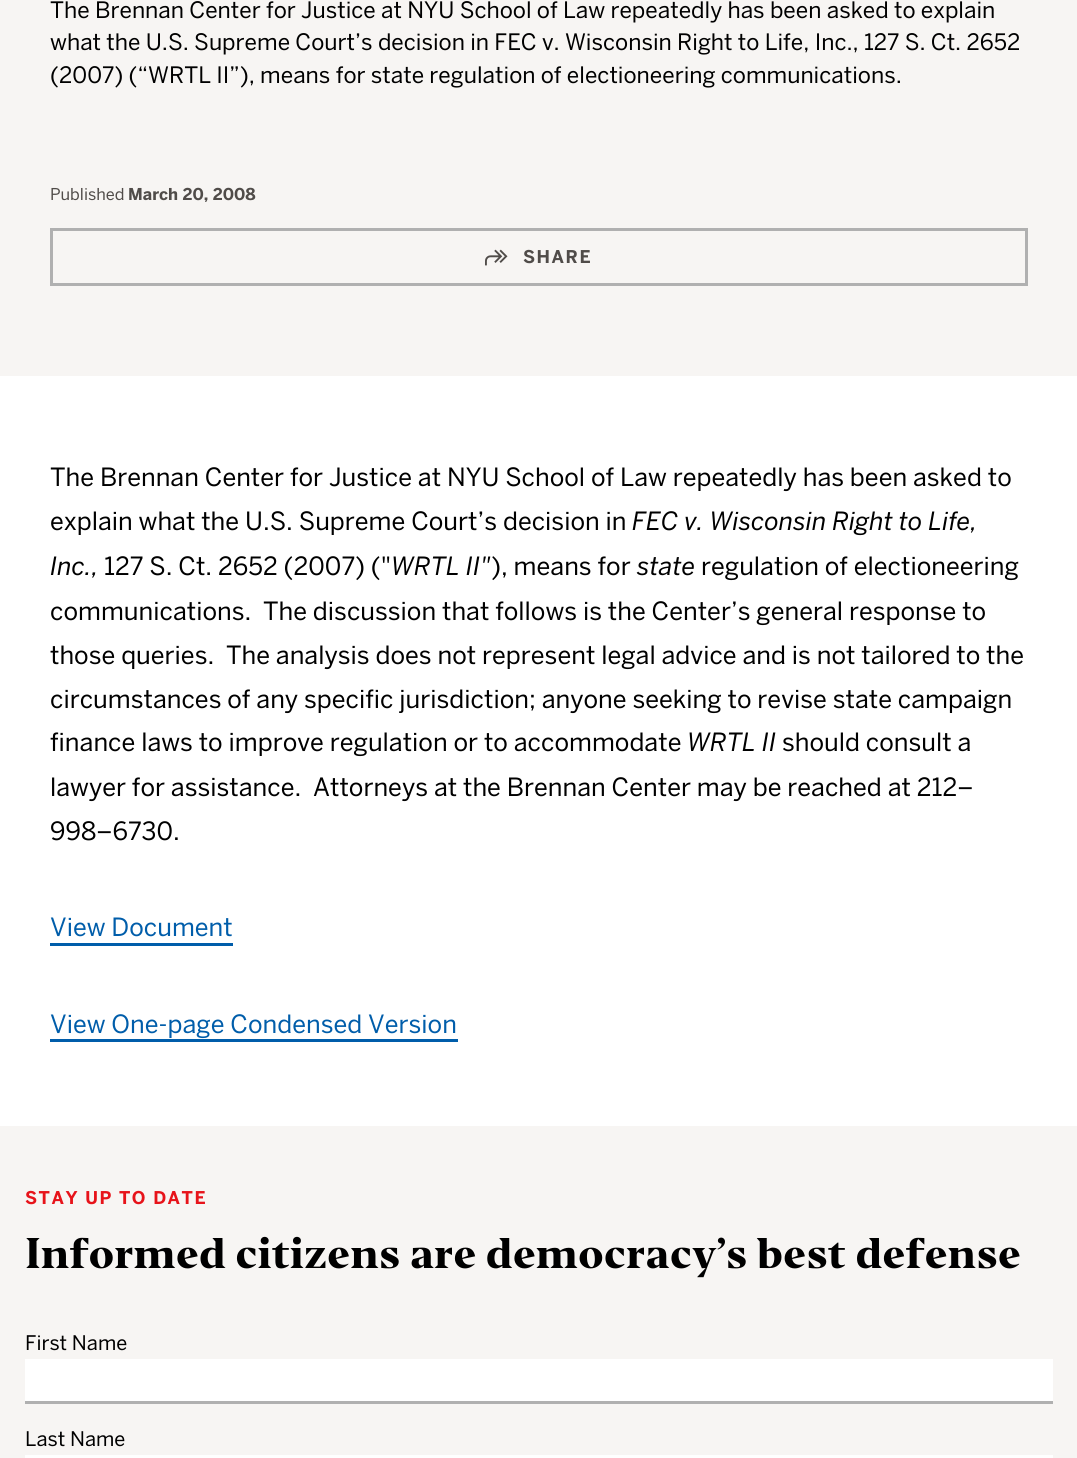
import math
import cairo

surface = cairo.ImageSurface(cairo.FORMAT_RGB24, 1077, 1458)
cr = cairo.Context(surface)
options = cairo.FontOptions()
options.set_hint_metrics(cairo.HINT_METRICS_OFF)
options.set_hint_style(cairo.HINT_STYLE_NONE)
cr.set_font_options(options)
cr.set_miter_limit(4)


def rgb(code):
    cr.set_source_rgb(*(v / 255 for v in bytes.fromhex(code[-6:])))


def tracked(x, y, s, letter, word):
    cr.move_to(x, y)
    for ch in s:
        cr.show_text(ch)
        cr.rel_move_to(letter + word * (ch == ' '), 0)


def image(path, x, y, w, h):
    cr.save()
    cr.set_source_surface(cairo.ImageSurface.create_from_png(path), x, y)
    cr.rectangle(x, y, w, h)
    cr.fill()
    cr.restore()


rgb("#ffffff")
cr.paint()
rgb("#f7f5f3")
cr.rectangle(0, 0, 1077, 376)
cr.fill()
cr.rectangle(51.5, 229.5, 975, 55)
rgb("#b0b0b0")
cr.set_line_width(3)
cr.stroke()
image("img/1.png", 485, 249, 23, 17)
for x, y, w, h, color in [
    (50, 943, 183, 3, "#005daa"),
    (50, 1039, 408, 3, "#005daa"),
    (0, 1126, 1077, 332, "#f7f5f3"),
    (25, 1359, 1028, 42, "#ffffff"),
    (25, 1401, 1028, 3, "#b0b0b0"),
    (25, 1455, 1028, 3, "#ffffff"),
]:
    rgb(color)
    cr.rectangle(x, y, w, h)
    cr.fill()
cr.select_font_face("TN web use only")
cr.set_font_size(22.5)
rgb("#000000")
for x, y, s in [
    (50, 18, "The Brennan Center for Justice at NYU School of Law repeatedly has been asked to explain"),
    (50, 50, "what the U.S. Supreme Court’s decision in FEC v. Wisconsin Right to Life, Inc., 127 S. Ct. 2652"),
    (50, 83, "(2007) (“WRTL II”), means for state regulation of electioneering communications."),
]:
    cr.move_to(x, y)
    cr.show_text(s)
cr.set_font_size(16.25)
rgb("#504c49")
cr.move_to(50, 200)
cr.show_text("Published")
cr.select_font_face("TN web use only", cairo.FONT_SLANT_NORMAL, cairo.FONT_WEIGHT_BOLD)
cr.move_to(128, 200)
cr.show_text("March 20, 2008")
cr.set_font_size(17.5)
tracked(523, 263, "SHARE", 1.5, 0)
cr.select_font_face("TN web use only")
cr.set_font_size(25)
rgb("#000000")
cr.move_to(50, 486)
cr.show_text("The Brennan Center for Justice at NYU School of Law repeatedly has been asked to")
cr.move_to(50, 530)
cr.show_text("explain what the U.S. Supreme Court’s decision in")
cr.select_font_face("TN web use only", cairo.FONT_SLANT_ITALIC)
cr.move_to(632, 530)
cr.show_text("FEC v. Wisconsin Right to Life,")
cr.move_to(50, 575)
cr.show_text("Inc.,")
cr.select_font_face("TN web use only")
cr.move_to(104, 575)
cr.show_text("127 S. Ct. 2652 (2007) (\"")
cr.select_font_face("TN web use only", cairo.FONT_SLANT_ITALIC)
cr.move_to(391, 575)
cr.show_text("WRTL II\"")
cr.select_font_face("TN web use only")
cr.move_to(491, 575)
cr.show_text("), means for")
cr.select_font_face("TN web use only", cairo.FONT_SLANT_ITALIC)
cr.move_to(637, 575)
cr.show_text("state")
cr.select_font_face("TN web use only")
for x, y, s in [
    (701, 575, "regulation of electioneering"),
    (50, 620, "communications.  The discussion that follows is the Center’s general response to"),
    (50, 664, "those queries.  The analysis does not represent legal advice and is not tailored to the"),
    (50, 708, "circumstances of any specific jurisdiction; anyone seeking to revise state campaign"),
    (50, 751, "finance laws to improve regulation or to accommodate"),
]:
    cr.move_to(x, y)
    cr.show_text(s)
cr.select_font_face("TN web use only", cairo.FONT_SLANT_ITALIC)
cr.move_to(687, 751)
cr.show_text("WRTL II")
cr.select_font_face("TN web use only")
for x, y, s in [
    (782, 751, "should consult a"),
    (50, 796, "lawyer for assistance.  Attorneys at the Brennan Center may be reached at 212–"),
    (50, 840, "998–6730."),
]:
    cr.move_to(x, y)
    cr.show_text(s)
rgb("#005daa")
cr.move_to(50, 936)
cr.show_text("View Document")
cr.move_to(50, 1033)
cr.show_text("View One-page Condensed Version")
cr.select_font_face("TN web use only", cairo.FONT_SLANT_NORMAL, cairo.FONT_WEIGHT_BOLD)
cr.set_font_size(17.5)
rgb("#e7131a")
tracked(25, 1204, "STAY UP TO DATE", 1.5, 0)
cr.select_font_face("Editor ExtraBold")
cr.set_font_size(40)
rgb("#000000")
cr.move_to(25, 1268)
cr.show_text("Informed citizens are democracy’s best defense")
cr.select_font_face("TN web use only")
cr.set_font_size(20)
cr.move_to(25, 1350)
cr.show_text("First Name")
cr.move_to(25, 1446)
cr.show_text("Last Name")
surface.write_to_png("page.png")
